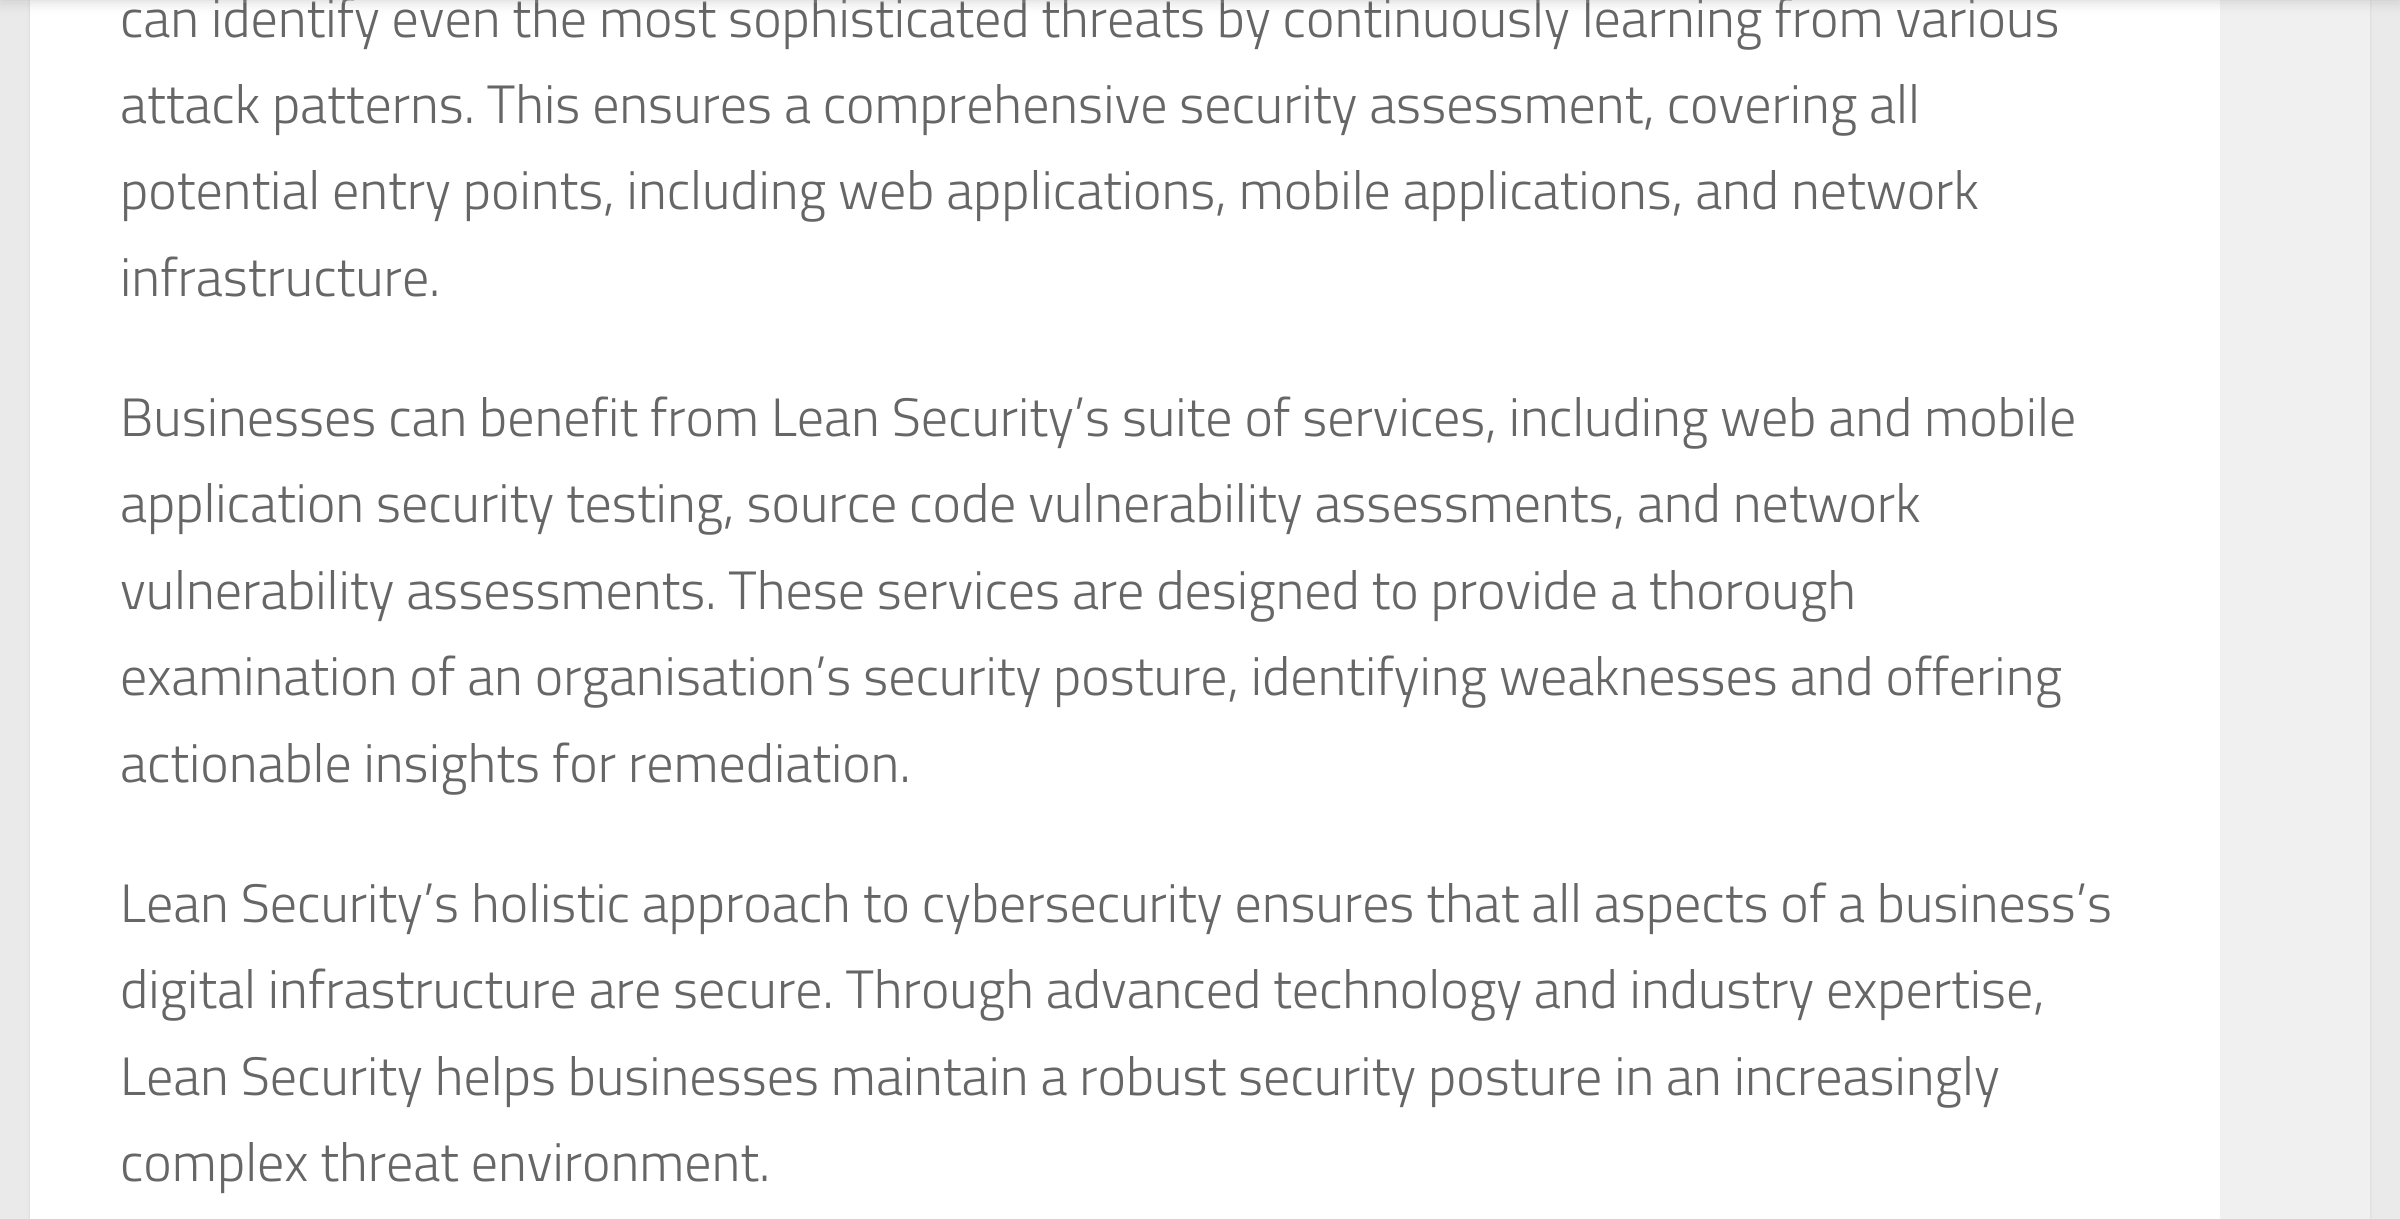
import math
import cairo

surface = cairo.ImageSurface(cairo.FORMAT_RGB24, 2400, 1219)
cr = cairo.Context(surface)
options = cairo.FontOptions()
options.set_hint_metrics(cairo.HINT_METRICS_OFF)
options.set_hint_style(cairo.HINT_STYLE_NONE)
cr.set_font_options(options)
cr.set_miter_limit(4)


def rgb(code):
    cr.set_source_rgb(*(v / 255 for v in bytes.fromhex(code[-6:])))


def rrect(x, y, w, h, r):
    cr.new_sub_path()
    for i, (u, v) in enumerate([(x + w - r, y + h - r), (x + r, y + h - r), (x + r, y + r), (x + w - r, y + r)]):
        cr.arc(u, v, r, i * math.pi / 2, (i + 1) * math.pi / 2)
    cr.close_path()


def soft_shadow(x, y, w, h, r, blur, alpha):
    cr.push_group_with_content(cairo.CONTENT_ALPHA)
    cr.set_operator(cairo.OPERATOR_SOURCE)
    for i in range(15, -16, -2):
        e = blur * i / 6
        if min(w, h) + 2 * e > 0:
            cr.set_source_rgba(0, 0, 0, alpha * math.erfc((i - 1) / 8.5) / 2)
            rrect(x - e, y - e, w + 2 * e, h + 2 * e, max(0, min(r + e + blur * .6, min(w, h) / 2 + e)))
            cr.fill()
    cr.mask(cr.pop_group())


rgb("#eaeaea")
cr.paint()
rgb("#000000")
soft_shadow(30, -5, 2340, 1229, 0, 1.5, 0.1)
rgb("#ffffff")
cr.rectangle(30, 0, 2190, 1219)
cr.fill()
rgb("#f0f0f0")
cr.rectangle(2220, 0, 150, 1219)
cr.fill()
cr.select_font_face("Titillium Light")
cr.set_font_size(54)
rgb("#666666")
cr.move_to(120, 37)
cr.show_text("can identify even the most sophisticated threats by continuously learning from various")
cr.set_source_rgba(1, 1, 1, 0.15)
cr.rectangle(0, 0, 2400, 3)
cr.fill()
rgb("#000000")
soft_shadow(0, -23, 2400, 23, 0, 7.5, 0.2)
rgb("#666666")
for x, y, s in [
    (120, 123, "attack patterns. This ensures a comprehensive security assessment, covering all"),
    (120, 209, "potential entry points, including web applications, mobile applications, and network"),
    (120, 296, "infrastructure."),
    (120, 436, "Businesses can benefit from Lean Security’s suite of services, including web and mobile"),
    (120, 522, "application security testing, source code vulnerability assessments, and network"),
    (120, 609, "vulnerability assessments. These services are designed to provide a thorough"),
    (120, 695, "examination of an organisation’s security posture, identifying weaknesses and offering"),
    (120, 782, "actionable insights for remediation."),
    (120, 922, "Lean Security’s holistic approach to cybersecurity ensures that all aspects of a business’s"),
    (120, 1008, "digital infrastructure are secure. Through advanced technology and industry expertise,"),
    (120, 1095, "Lean Security helps businesses maintain a robust security posture in an increasingly"),
    (120, 1181, "complex threat environment."),
]:
    cr.move_to(x, y)
    cr.show_text(s)
surface.write_to_png("page.png")
